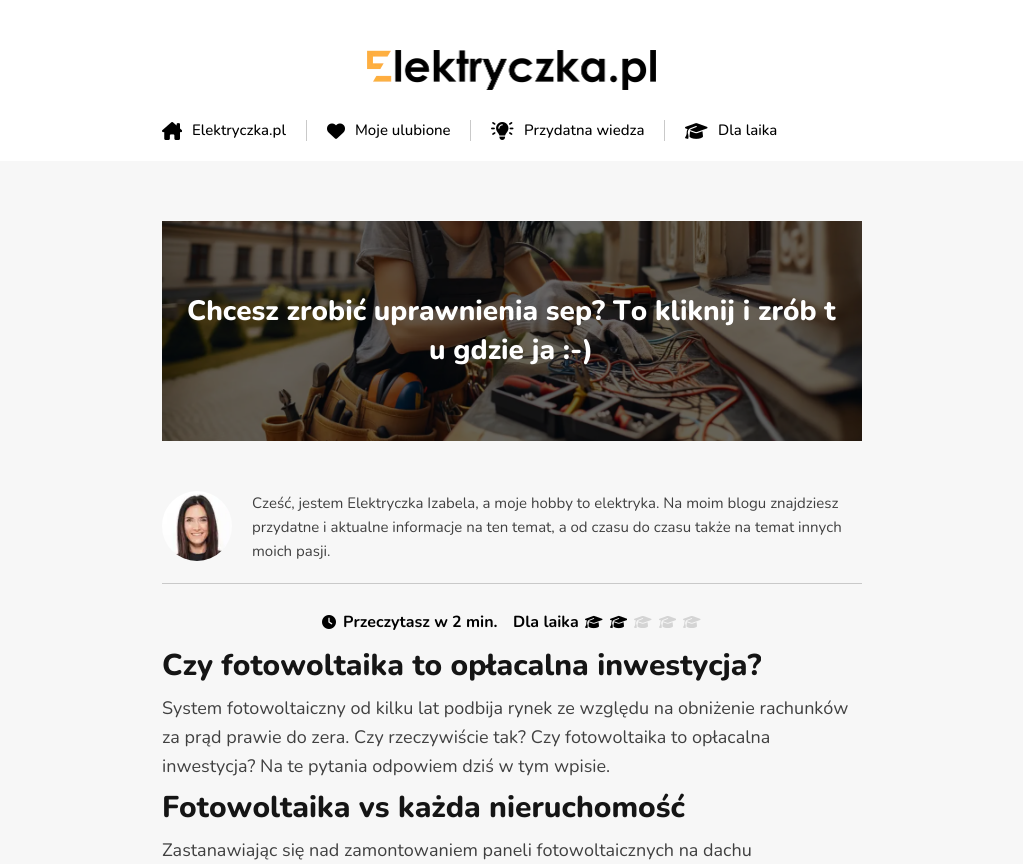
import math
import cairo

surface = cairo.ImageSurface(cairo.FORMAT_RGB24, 1023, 864)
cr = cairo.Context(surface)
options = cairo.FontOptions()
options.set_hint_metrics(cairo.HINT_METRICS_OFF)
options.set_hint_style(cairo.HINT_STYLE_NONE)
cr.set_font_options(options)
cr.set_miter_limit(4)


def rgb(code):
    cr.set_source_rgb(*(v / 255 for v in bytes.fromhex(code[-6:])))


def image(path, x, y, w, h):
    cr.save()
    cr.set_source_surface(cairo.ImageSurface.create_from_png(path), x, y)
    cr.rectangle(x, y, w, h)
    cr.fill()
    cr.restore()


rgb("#ffffff")
cr.paint()
image("img/1.png", 367, 50, 289, 40)
image("img/2.png", 162, 122, 20, 18)
rgb("#c9c9c9")
cr.rectangle(306, 120, 1, 21)
cr.fill()
image("img/3.png", 327, 123, 18, 16)
cr.rectangle(470, 120, 1, 21)
cr.fill()
image("img/4.png", 491, 122, 23, 18)
cr.rectangle(664, 120, 1, 21)
cr.fill()
image("img/5.png", 685, 123, 23, 16)
rgb("#f7f7f7")
cr.rectangle(0, 161, 1023, 703)
cr.fill()
image("img/6.png", 162, 221, 700, 220)
rgb("#c9c9c9")
cr.rectangle(162, 583, 700, 1)
cr.fill()
image("img/7.png", 162, 491, 70, 70)
image("img/8.png", 322, 615, 14, 14)
image("img/9.png", 585, 615, 18, 14)
image("img/10.png", 610, 615, 17, 14)
image("img/11.png", 634, 616, 18, 12)
image("img/12.png", 659, 616, 17, 12)
image("img/11.png", 683, 616, 18, 12)
cr.select_font_face("Nunito Medium")
cr.set_font_size(15)
rgb("#000000")
for x, y, s in [
    (192, 135, "Elektryczka.pl"),
    (355, 135, "Moje ulubione"),
    (524, 135, "Przydatna wiedza"),
    (718, 135, "Dla laika"),
]:
    cr.move_to(x, y)
    cr.show_text(s)
cr.select_font_face("Nunito ExtraBold")
cr.set_font_size(28)
rgb("#ffffff")
cr.move_to(187, 320)
cr.show_text("Chcesz zrobić uprawnienia sep? To kliknij i zrób t")
cr.move_to(429, 359)
cr.show_text("u gdzie ja :-)")
cr.select_font_face("Nunito")
cr.set_font_size(15)
rgb("#404040")
for x, y, s in [
    (252, 508, "Cześć, jestem Elektryczka Izabela, a moje hobby to elektryka. Na moim blogu znajdziesz"),
    (252, 532, "przydatne i aktualne informacje na ten temat, a od czasu do czasu także na temat innych"),
    (252, 556, "moich pasji."),
]:
    cr.move_to(x, y)
    cr.show_text(s)
cr.select_font_face("Nunito", cairo.FONT_SLANT_NORMAL, cairo.FONT_WEIGHT_BOLD)
cr.set_font_size(16)
rgb("#000000")
cr.move_to(343, 627)
cr.show_text("Przeczytasz w 2 min.")
cr.move_to(513, 627)
cr.show_text("Dla laika")
cr.select_font_face("Nunito ExtraBold")
cr.set_font_size(30)
rgb("#151515")
cr.move_to(162, 675)
cr.show_text("Czy fotowoltaika to opłacalna inwestycja?")
cr.select_font_face("Nunito")
cr.set_font_size(18)
rgb("#404040")
for x, y, s in [
    (162, 714, "System fotowoltaiczny od kilku lat podbija rynek ze względu na obniżenie rachunków"),
    (162, 743, "za prąd prawie do zera. Czy rzeczywiście tak? Czy fotowoltaika to opłacalna"),
    (162, 772, "inwestycja? Na te pytania odpowiem dziś w tym wpisie."),
]:
    cr.move_to(x, y)
    cr.show_text(s)
cr.select_font_face("Nunito ExtraBold")
cr.set_font_size(30)
rgb("#151515")
cr.move_to(162, 817)
cr.show_text("Fotowoltaika vs każda nieruchomość")
cr.select_font_face("Nunito")
cr.set_font_size(18)
rgb("#404040")
cr.move_to(162, 856)
cr.show_text("Zastanawiając się nad zamontowaniem paneli fotowoltaicznych na dachu")
surface.write_to_png("page.png")
